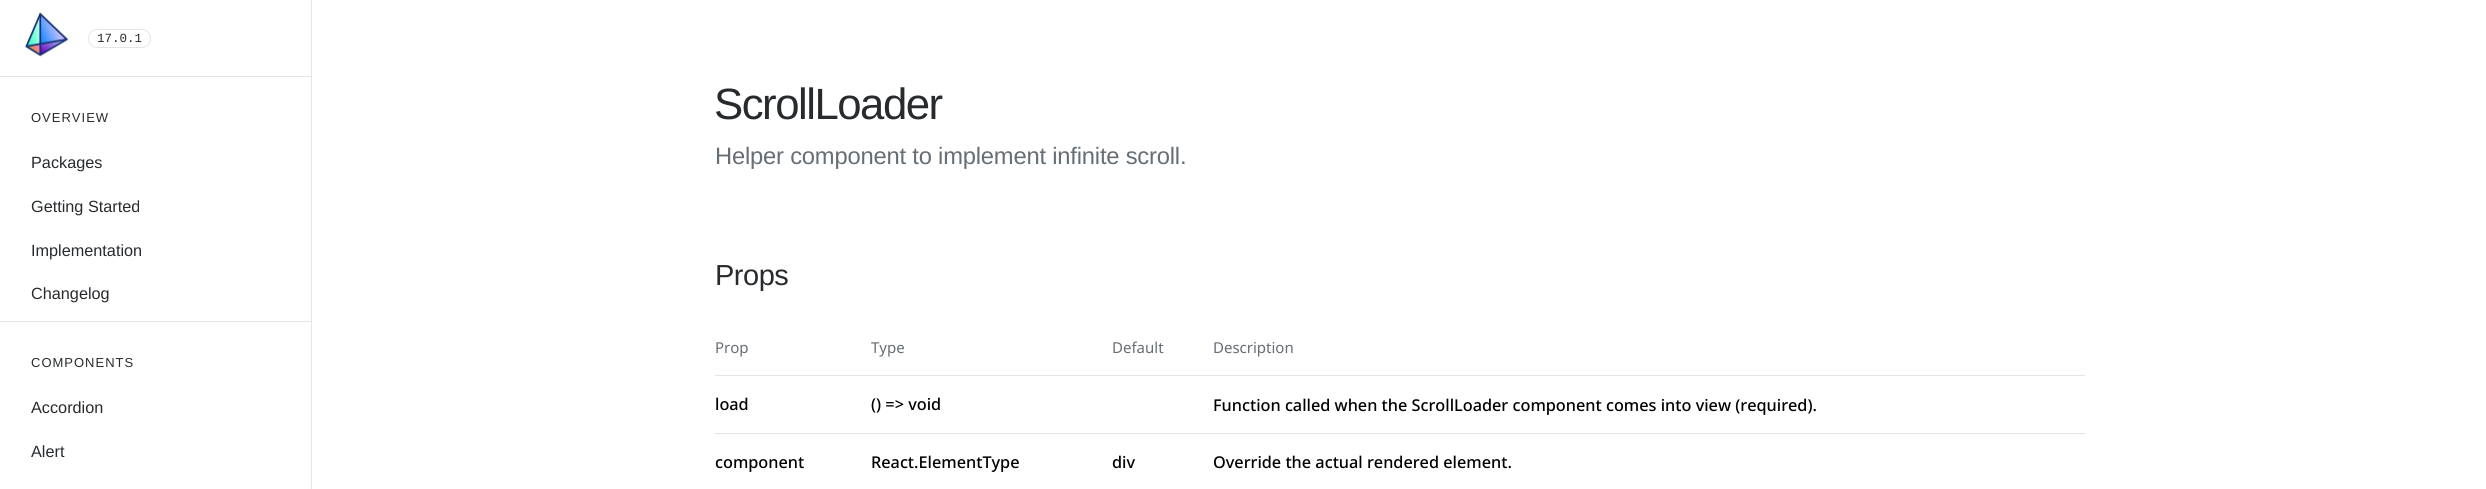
import math
import cairo

surface = cairo.ImageSurface(cairo.FORMAT_RGB24, 2486, 489)
cr = cairo.Context(surface)
options = cairo.FontOptions()
options.set_hint_metrics(cairo.HINT_METRICS_OFF)
options.set_hint_style(cairo.HINT_STYLE_NONE)
cr.set_font_options(options)
cr.set_miter_limit(4)


def rgb(code):
    cr.set_source_rgb(*(v / 255 for v in bytes.fromhex(code[-6:])))


def tracked(x, y, s, letter, word):
    cr.move_to(x, y)
    for ch in s:
        cr.show_text(ch)
        cr.rel_move_to(letter + word * (ch == ' '), 0)


def rrect(x, y, w, h, r):
    cr.new_sub_path()
    for i, (u, v) in enumerate([(x + w - r, y + h - r), (x + r, y + h - r), (x + r, y + r), (x + w - r, y + r)]):
        cr.arc(u, v, r, i * math.pi / 2, (i + 1) * math.pi / 2)
    cr.close_path()


def image(path, x, y, w, h):
    cr.save()
    cr.set_source_surface(cairo.ImageSurface.create_from_png(path), x, y)
    cr.rectangle(x, y, w, h)
    cr.fill()
    cr.restore()


rgb("#ffffff")
cr.paint()
rgb("#e2e6e9")
cr.rectangle(311, 0, 1, 489)
cr.fill()
image("img/1.png", 25, 12, 43, 45)
rrect(88.5, 29.5, 62, 18, 9)
cr.set_line_width(1)
cr.stroke()
for x, y, w, h, color in [
    (0, 76, 311, 1, "#e2e6e9"),
    (0, 321, 311, 1, "#e2e6e9"),
    (715, 375, 1370, 1, "#e2e6e9"),
    (715, 433, 1370, 1, "#e2e6e9"),
]:
    rgb(color)
    cr.rectangle(x, y, w, h)
    cr.fill()
cr.select_font_face("Liberation Mono")
cr.set_font_size(12.5)
rgb("#282b2e")
cr.move_to(97, 42)
cr.show_text("17.0.1")
cr.select_font_face("Liberation Sans")
cr.set_font_size(13)
tracked(31, 122, "OVERVIEW", 1, 0)
cr.set_font_size(16.25)
for x, y, s in [
    (31, 168, "Packages"),
    (31, 212, "Getting Started"),
    (31, 256, "Implementation"),
    (31, 299, "Changelog"),
]:
    cr.move_to(x, y)
    cr.show_text(s)
cr.set_font_size(13)
tracked(31, 367, "COMPONENTS", 1, 0)
cr.set_font_size(16.25)
cr.move_to(31, 413)
cr.show_text("Accordion")
cr.move_to(31, 457)
cr.show_text("Alert")
cr.set_font_size(43.75)
tracked(714, 119, "ScrollLoader", -1.5, 0)
cr.set_font_size(23.75)
rgb("#666e75")
tracked(715, 164, "Helper component to implement infinite scroll.", -0.2, 0)
cr.set_font_size(29)
rgb("#282b2e")
tracked(715, 285, "Props", -0.5, 0)
cr.select_font_face("Noto Sans")
cr.set_font_size(15)
rgb("#666e75")
for x, y, s in [
    (715, 353, "Prop"),
    (871, 353, "Type"),
    (1112, 353, "Default"),
    (1213, 353, "Description"),
]:
    cr.move_to(x, y)
    cr.show_text(s)
cr.select_font_face("Noto Sans Medium")
cr.set_font_size(16.25)
rgb("#000000")
for x, y, s in [
    (715, 410, "load"),
    (871, 410, "() => void"),
    (1213, 411, "Function called when the ScrollLoader component comes into view (required)."),
    (715, 468, "component"),
    (871, 468, "React.ElementType"),
    (1112, 468, "div"),
    (1213, 468, "Override the actual rendered element."),
]:
    cr.move_to(x, y)
    cr.show_text(s)
surface.write_to_png("page.png")
